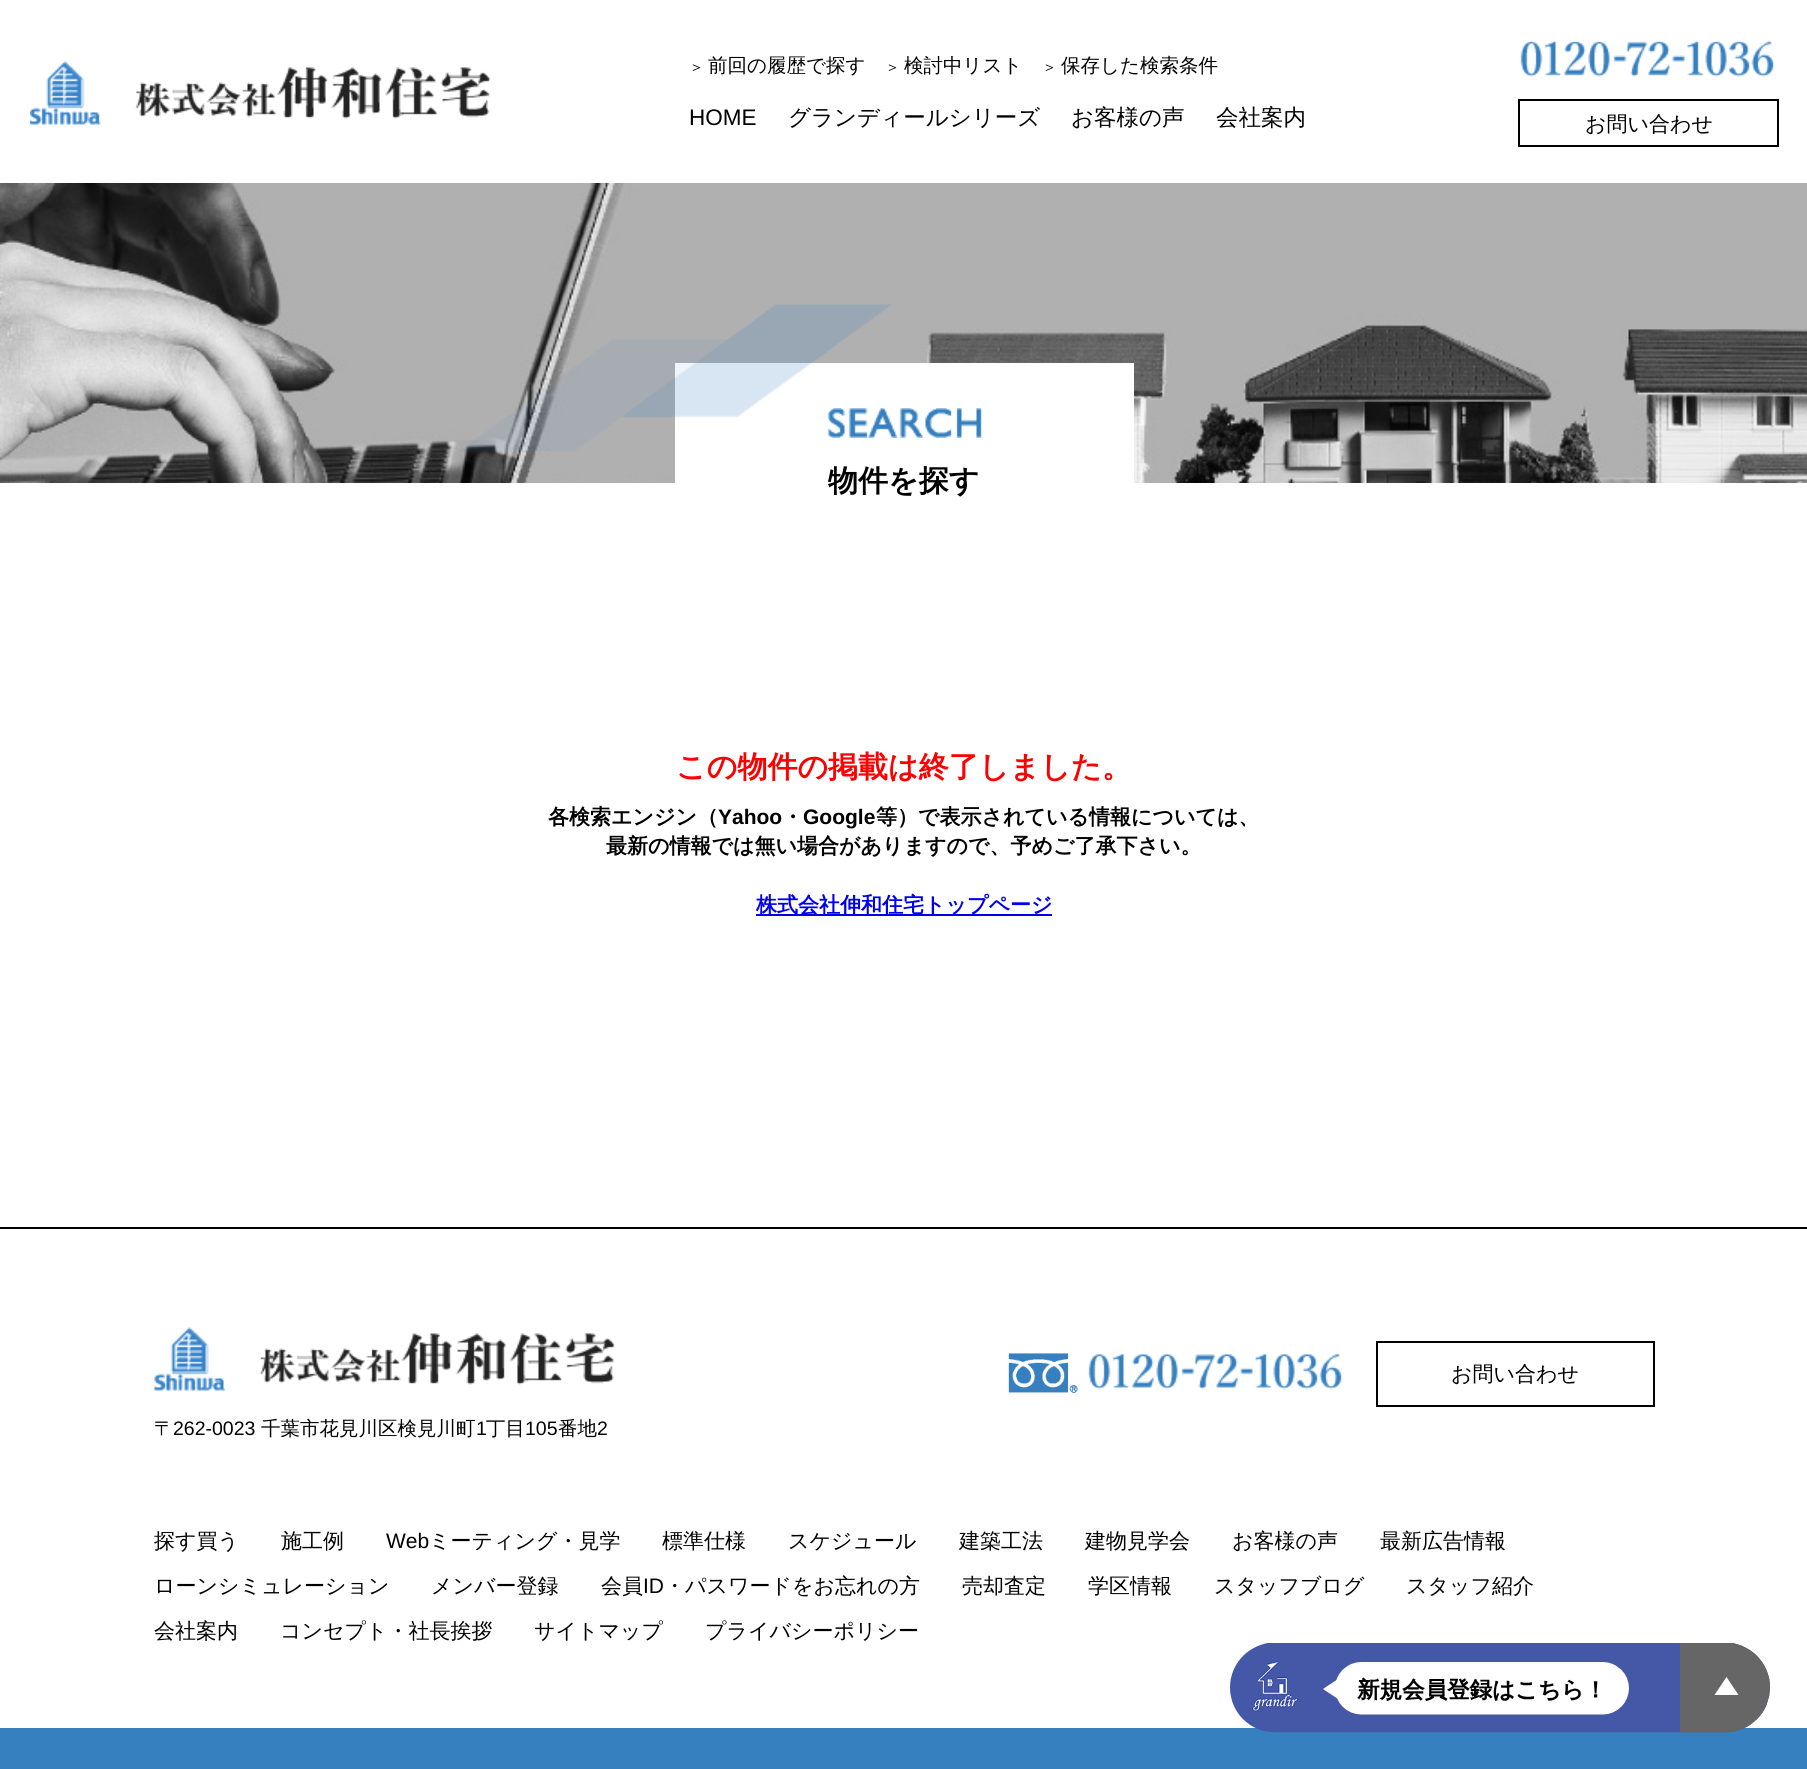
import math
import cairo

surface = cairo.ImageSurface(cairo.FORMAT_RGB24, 1807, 1769)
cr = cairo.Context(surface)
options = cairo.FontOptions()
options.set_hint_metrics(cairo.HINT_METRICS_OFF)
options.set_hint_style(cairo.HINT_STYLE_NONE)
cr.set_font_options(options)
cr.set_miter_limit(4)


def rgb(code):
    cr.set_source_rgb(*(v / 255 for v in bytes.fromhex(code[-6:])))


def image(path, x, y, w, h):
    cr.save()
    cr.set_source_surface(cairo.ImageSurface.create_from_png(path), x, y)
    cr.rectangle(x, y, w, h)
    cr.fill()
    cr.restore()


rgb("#ffffff")
cr.paint()
image("img/1.png", 30, 61, 461, 64)
image("img/2.png", 1520, 40, 254, 37)
cr.rectangle(1519, 100, 259, 46)
rgb("#000000")
cr.stroke()
image("img/3.png", 0, 183, 1807, 300)
rgb("#ffffff")
cr.rectangle(675, 363, 459, 120)
cr.fill()
image("img/5.png", 827, 408, 155, 30)
image("img/4.png", 459, 304, 432, 148)
rgb("#0000ee")
cr.rectangle(756, 914, 296, 2)
cr.fill()
rgb("#000000")
cr.rectangle(0, 1227, 1807, 2)
cr.fill()
image("img/6.png", 1008, 1353, 70, 40)
image("img/7.png", 1088, 1353, 254, 37)
cr.rectangle(1377, 1342, 277, 64)
cr.stroke()
image("img/8.png", 154, 1327, 461, 64)
rgb("#3780c0")
cr.rectangle(0, 1728, 1807, 41)
cr.fill()
image("img/9.png", 1230, 1643, 540, 90)
cr.select_font_face("WenQuanYi Zen Hei Medium")
cr.set_font_size(15)
rgb("#000000")
cr.move_to(689, 72)
cr.show_text("＞")
cr.set_font_size(19.5)
cr.move_to(708, 72)
cr.show_text("前回の履歴で探す")
cr.set_font_size(15)
cr.move_to(885, 72)
cr.show_text("＞")
cr.set_font_size(19.5)
cr.move_to(904, 72)
cr.show_text("検討中リスト")
cr.set_font_size(15)
cr.move_to(1042, 72)
cr.show_text("＞")
cr.set_font_size(19.5)
cr.move_to(1061, 72)
cr.show_text("保存した検索条件")
cr.select_font_face("Liberation Sans")
cr.set_font_size(22.5)
cr.move_to(689, 125)
cr.show_text("HOME")
cr.select_font_face("WenQuanYi Zen Hei Medium")
for x, y, s in [
    (788, 125, "グランディールシリーズ"),
    (1071, 125, "お客様の声"),
    (1216, 125, "会社案内"),
]:
    cr.move_to(x, y)
    cr.show_text(s)
cr.set_font_size(21)
cr.move_to(1585, 131)
cr.show_text("お問い合わせ")
cr.select_font_face("WenQuanYi Zen Hei", cairo.FONT_SLANT_NORMAL, cairo.FONT_WEIGHT_BOLD)
cr.set_font_size(30)
cr.move_to(828, 491)
cr.show_text("物件を探す")
rgb("#ff0000")
cr.move_to(676, 777)
cr.show_text("この物件の掲載は終了しました。")
cr.set_font_size(21)
rgb("#000000")
cr.move_to(548, 824)
cr.show_text("各検索エンジン（")
cr.select_font_face("Liberation Sans", cairo.FONT_SLANT_NORMAL, cairo.FONT_WEIGHT_BOLD)
cr.move_to(718, 824)
cr.show_text("Yahoo")
cr.select_font_face("WenQuanYi Zen Hei", cairo.FONT_SLANT_NORMAL, cairo.FONT_WEIGHT_BOLD)
cr.move_to(782, 824)
cr.show_text("・")
cr.select_font_face("Liberation Sans", cairo.FONT_SLANT_NORMAL, cairo.FONT_WEIGHT_BOLD)
cr.move_to(803, 824)
cr.show_text("Google")
cr.select_font_face("WenQuanYi Zen Hei", cairo.FONT_SLANT_NORMAL, cairo.FONT_WEIGHT_BOLD)
cr.move_to(876, 824)
cr.show_text("等）で表示されている情報については、")
cr.move_to(606, 853)
cr.show_text("最新の情報では無い場合がありますので、予めご了承下さい。")
rgb("#0000ee")
cr.move_to(756, 912)
cr.show_text("株式会社伸和住宅トップページ")
cr.select_font_face("WenQuanYi Zen Hei Medium")
rgb("#000000")
cr.move_to(1451, 1381)
cr.show_text("お問い合わせ")
cr.set_font_size(19.5)
cr.move_to(154, 1435)
cr.show_text("〒")
cr.select_font_face("Liberation Sans")
cr.move_to(173, 1435)
cr.show_text("262-0023")
cr.select_font_face("WenQuanYi Zen Hei Medium")
cr.move_to(261, 1435)
cr.show_text("千葉市花見川区検見川町")
cr.select_font_face("Liberation Sans")
cr.move_to(476, 1435)
cr.show_text("1")
cr.select_font_face("WenQuanYi Zen Hei Medium")
cr.move_to(486, 1435)
cr.show_text("丁目")
cr.select_font_face("Liberation Sans")
cr.move_to(525, 1435)
cr.show_text("105")
cr.select_font_face("WenQuanYi Zen Hei Medium")
cr.move_to(558, 1435)
cr.show_text("番地")
cr.select_font_face("Liberation Sans")
cr.move_to(597, 1435)
cr.show_text("2")
cr.select_font_face("WenQuanYi Zen Hei Medium")
cr.set_font_size(21)
cr.move_to(154, 1548)
cr.show_text("探す買う")
cr.move_to(281, 1548)
cr.show_text("施工例")
cr.select_font_face("Liberation Sans")
cr.move_to(386, 1548)
cr.show_text("Web")
cr.select_font_face("WenQuanYi Zen Hei Medium")
for x, y, s in [
    (429, 1548, "ミーティング・見学"),
    (662, 1548, "標準仕様"),
    (788, 1548, "スケジュール"),
    (959, 1548, "建築工法"),
    (1085, 1548, "建物見学会"),
    (1232, 1548, "お客様の声"),
    (1380, 1548, "最新広告情報"),
    (154, 1593, "ローンシミュレーション"),
    (431, 1593, "メンバー登録"),
    (601, 1593, "会員"),
]:
    cr.move_to(x, y)
    cr.show_text(s)
cr.select_font_face("Liberation Sans")
cr.move_to(643, 1593)
cr.show_text("ID")
cr.select_font_face("WenQuanYi Zen Hei Medium")
for x, y, s in [
    (664, 1593, "・パスワードをお忘れの方"),
    (962, 1593, "売却査定"),
    (1088, 1593, "学区情報"),
    (1214, 1593, "スタッフブログ"),
    (1406, 1593, "スタッフ紹介"),
    (154, 1638, "会社案内"),
    (280, 1638, "コンセプト・社長挨拶"),
    (534, 1638, "サイトマップ"),
    (705, 1638, "プライバシーポリシー"),
]:
    cr.move_to(x, y)
    cr.show_text(s)
surface.write_to_png("page.png")
